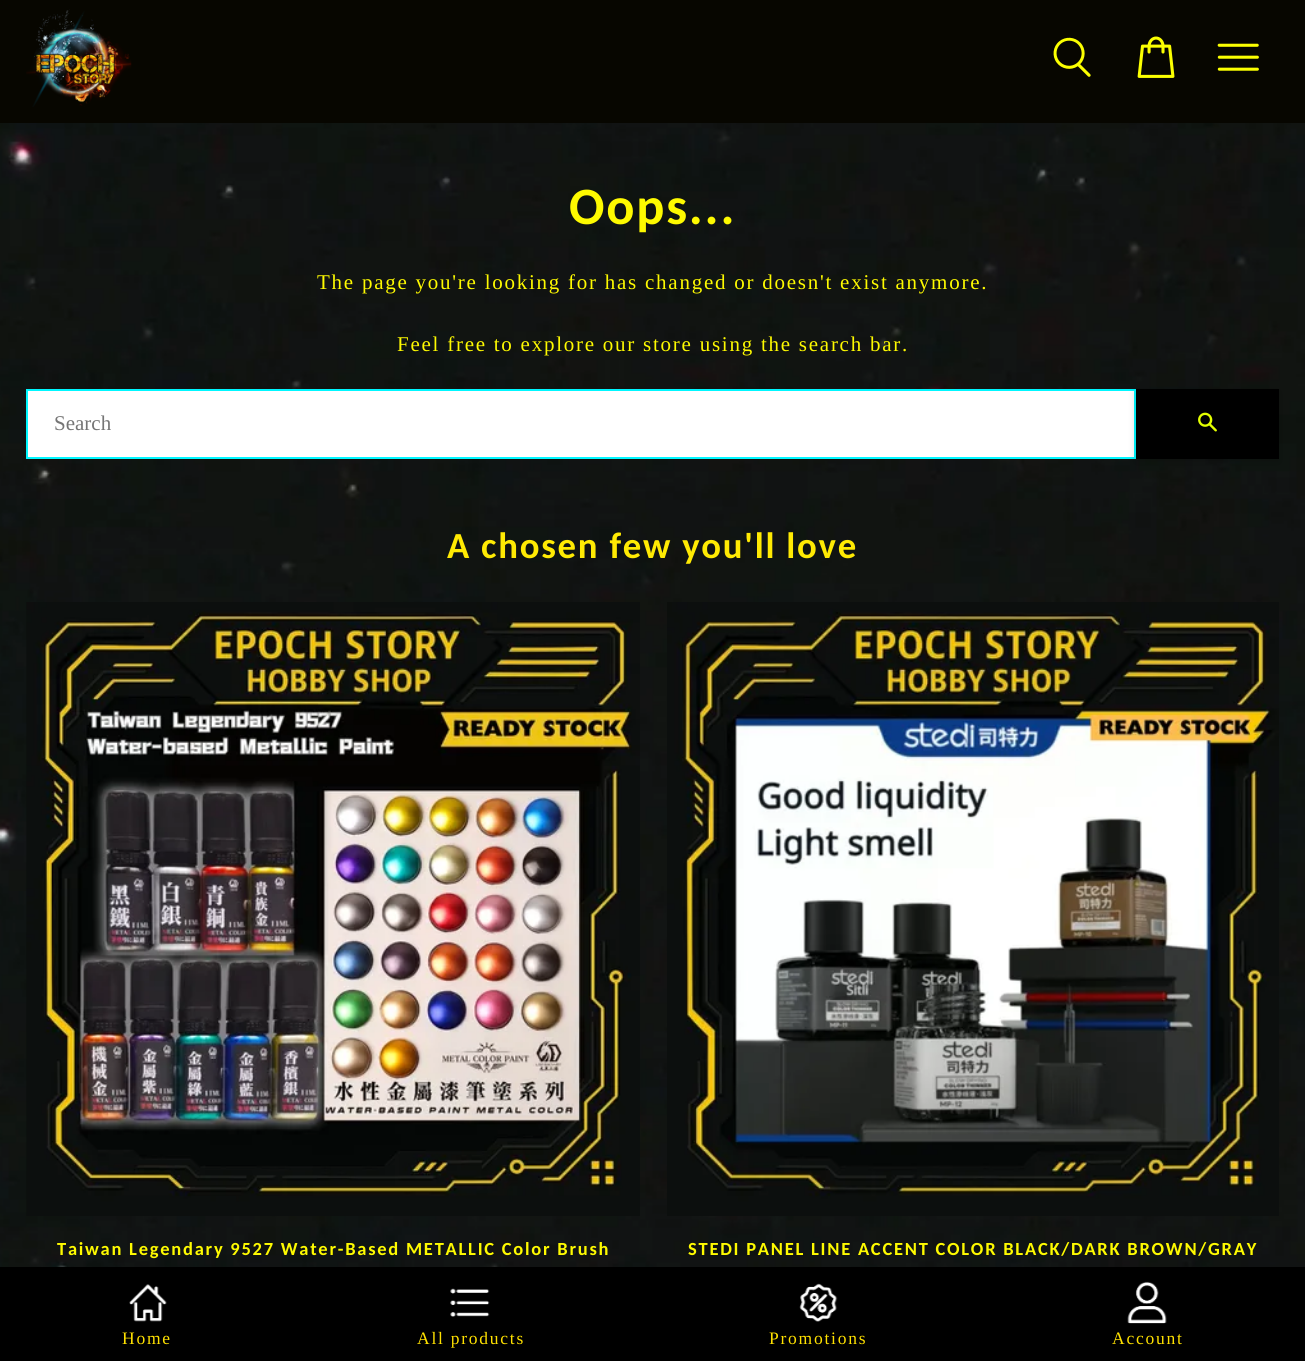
import math
import cairo

surface = cairo.ImageSurface(cairo.FORMAT_RGB24, 1305, 1361)
cr = cairo.Context(surface)
options = cairo.FontOptions()
options.set_hint_metrics(cairo.HINT_METRICS_OFF)
options.set_hint_style(cairo.HINT_STYLE_NONE)
cr.set_font_options(options)
cr.set_miter_limit(4)


def rgb(code):
    cr.set_source_rgb(*(v / 255 for v in bytes.fromhex(code[-6:])))


def tracked(x, y, s, letter, word):
    cr.move_to(x, y)
    for ch in s:
        cr.show_text(ch)
        cr.rel_move_to(letter + word * (ch == ' '), 0)


def rrect(x, y, w, h, r):
    cr.new_sub_path()
    for i, (u, v) in enumerate([(x + w - r, y + h - r), (x + r, y + h - r), (x + r, y + r), (x + w - r, y + r)]):
        cr.arc(u, v, r, i * math.pi / 2, (i + 1) * math.pi / 2)
    cr.close_path()


def soft_shadow(x, y, w, h, r, blur, alpha):
    cr.push_group_with_content(cairo.CONTENT_ALPHA)
    cr.set_operator(cairo.OPERATOR_SOURCE)
    for i in range(15, -16, -2):
        e = blur * i / 6
        if min(w, h) + 2 * e > 0:
            cr.set_source_rgba(0, 0, 0, alpha * math.erfc((i - 1) / 8.5) / 2)
            rrect(x - e, y - e, w + 2 * e, h + 2 * e, max(0, min(r + e + blur * .6, min(w, h) / 2 + e)))
            cr.fill()
    cr.mask(cr.pop_group())


def image(path, x, y, w, h):
    cr.save()
    cr.set_source_surface(cairo.ImageSurface.create_from_png(path), x, y)
    cr.rectangle(x, y, w, h)
    cr.fill()
    cr.restore()


rgb("#ffffff")
cr.paint()
image("img/1.png", 0, 123, 1305, 1144)
rgb("#070600")
cr.rectangle(0, 0, 1305, 123)
cr.fill()
image("img/2.png", 26, 9, 106, 98)
image("img/3.png", 1053, 37, 38, 40)
image("img/4.png", 1137, 36, 38, 42)
image("img/5.png", 1217, 43, 42, 28)
rgb("#ffffff")
cr.rectangle(27, 390, 1108, 68)
cr.fill_preserve()
rgb("#00f7ff")
cr.stroke()
rgb("#000000")
soft_shadow(1136, 392, 143, 70, 0, 4.5, 0.15)
rgb("#000000")
cr.rectangle(1136, 389, 143, 70)
cr.fill()
image("img/6.png", 1198, 412, 19, 20)
image("img/7.png", 26, 602, 614, 614)
image("img/8.png", 667, 602, 612, 614)
cr.rectangle(0, 1267, 1305, 94)
cr.fill()
image("img/9.png", 129, 1284, 38, 38)
image("img/10.png", 450, 1288, 40, 29)
image("img/11.png", 799, 1283, 39, 39)
image("img/12.png", 1127, 1281, 40, 43)
cr.select_font_face("Carlito", cairo.FONT_SLANT_NORMAL, cairo.FONT_WEIGHT_BOLD)
cr.set_font_size(52.5)
rgb("#fefa00")
tracked(569, 224, "Oops...", 1.75, 0)
cr.select_font_face("Liberation Serif")
cr.set_font_size(21)
tracked(317, 289, "The page you're looking for has changed or doesn't exist anymore.", 1.75, 0)
tracked(397, 351, "Feel free to explore our store using the search bar.", 1.75, 0)
rgb("#757575")
cr.move_to(54, 430)
cr.show_text("Search")
cr.select_font_face("Carlito", cairo.FONT_SLANT_NORMAL, cairo.FONT_WEIGHT_BOLD)
cr.set_font_size(36.75)
rgb("#ffea03")
tracked(447, 558, "A chosen few you'll love", 1.75, 0)
cr.set_font_size(18.5)
rgb("#fefa00")
tracked(57, 1255, "Taiwan Legendary 9527 Water-Based METALLIC Color Brush", 1.75, 0)
tracked(688, 1255, "STEDI PANEL LINE ACCENT COLOR BLACK/DARK BROWN/GRAY", 1.75, 0)
cr.select_font_face("Liberation Serif")
cr.set_font_size(17.5)
rgb("#ffe100")
for x, y, s in [
    (122, 1344, "Home"),
    (417, 1344, "All products"),
    (769, 1344, "Promotions"),
    (1112, 1344, "Account"),
]:
    tracked(x, y, s, 1.75, 0)
surface.write_to_png("page.png")
